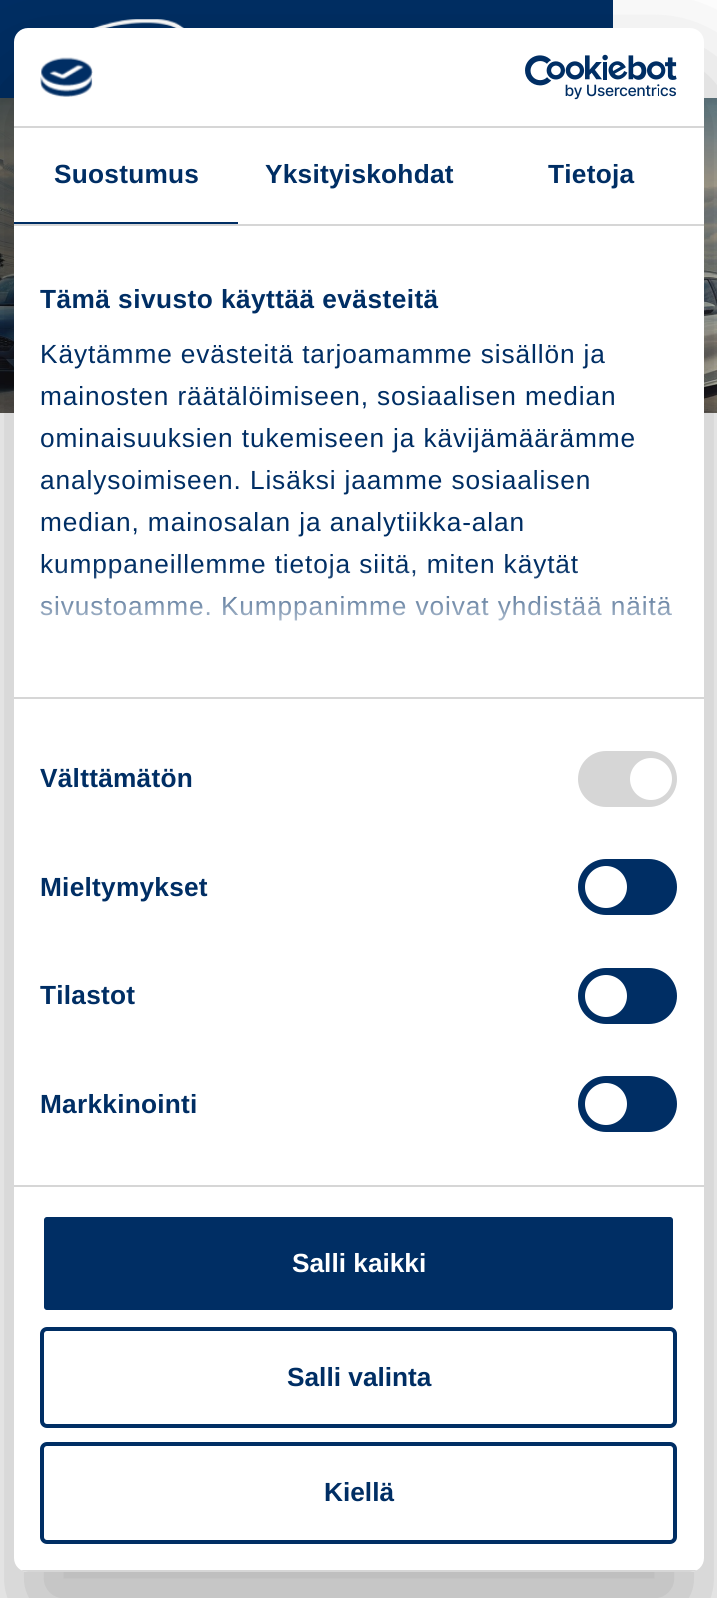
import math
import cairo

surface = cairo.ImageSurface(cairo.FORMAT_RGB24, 717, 1598)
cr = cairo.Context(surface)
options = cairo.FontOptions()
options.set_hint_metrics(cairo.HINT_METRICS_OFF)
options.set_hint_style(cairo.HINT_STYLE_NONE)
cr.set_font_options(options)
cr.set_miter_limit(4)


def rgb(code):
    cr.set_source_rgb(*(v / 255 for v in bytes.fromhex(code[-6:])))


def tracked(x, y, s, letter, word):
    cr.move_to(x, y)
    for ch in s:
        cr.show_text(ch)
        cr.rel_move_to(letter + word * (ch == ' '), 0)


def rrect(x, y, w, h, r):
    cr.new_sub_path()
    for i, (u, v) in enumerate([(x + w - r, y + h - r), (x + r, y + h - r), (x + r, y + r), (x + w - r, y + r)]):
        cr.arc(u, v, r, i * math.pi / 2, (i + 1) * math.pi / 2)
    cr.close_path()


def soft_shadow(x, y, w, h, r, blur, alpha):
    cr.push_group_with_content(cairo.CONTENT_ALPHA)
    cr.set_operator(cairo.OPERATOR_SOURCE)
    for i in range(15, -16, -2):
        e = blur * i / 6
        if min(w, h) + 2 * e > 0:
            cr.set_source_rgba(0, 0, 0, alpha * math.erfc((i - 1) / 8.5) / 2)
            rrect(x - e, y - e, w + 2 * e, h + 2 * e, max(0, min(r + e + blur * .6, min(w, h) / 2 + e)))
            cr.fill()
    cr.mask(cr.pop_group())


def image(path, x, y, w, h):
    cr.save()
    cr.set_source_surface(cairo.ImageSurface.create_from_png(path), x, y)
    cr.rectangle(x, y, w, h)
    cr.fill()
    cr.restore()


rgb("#ffffff")
cr.paint()
image("img/2.png", 0, 98, 717, 315)
cr.save()
cr.rectangle(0, 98, 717, 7)
cr.clip()
rgb("#000000")
soft_shadow(0, 5, 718, 98, 0, 3.5, 0.07)
cr.restore()
rgb("#002e64")
cr.rectangle(0, 0, 613, 98)
cr.fill()
image("img/1.png", 93, 19, 91, 9)
gradient = cairo.LinearGradient(0, 256, 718, 256)
gradient.add_color_stop_rgba(0, 0, 0, 0, 0.45)
gradient.add_color_stop_rgba(1, 0, 0, 0, 0.2)
cr.set_source(gradient)
cr.rectangle(0, 98, 717, 315)
cr.fill()
rgb("#000000")
soft_shadow(14, 84, 690, 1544, 14, 59.5, 0.3)
rgb("#ffffff")
rrect(14, 28, 690, 1544, 14)
cr.fill()
rgb("#d6d6d6")
cr.rectangle(14, 126, 690, 2)
cr.fill()
image("img/3.png", 40, 57, 53, 40)
image("img/4.png", 525, 54, 152, 46)
for x, y, w, h, color in [
    (14, 224, 690, 2, "#d6d6d6"),
    (14, 222, 224, 2, "#002e64"),
    (14, 697, 690, 2, "#d6d6d6"),
    (14, 1185, 690, 2, "#d6d6d6"),
]:
    rgb(color)
    cr.rectangle(x, y, w, h)
    cr.fill()
rrect(578, 751, 99, 56, 28)
cr.fill()
rgb("#ffffff")
cr.arc(651, 779, 21, 0, 2 * math.pi)
cr.fill()
rgb("#002e64")
rrect(578, 859, 99, 56, 28)
cr.fill()
rgb("#ffffff")
cr.arc(606, 887, 21, 0, 2 * math.pi)
cr.fill()
rgb("#002e64")
rrect(578, 968, 99, 56, 28)
cr.fill()
rgb("#ffffff")
cr.arc(606, 996, 21, 0, 2 * math.pi)
cr.fill()
rgb("#002e64")
rrect(578, 1076, 99, 56, 28)
cr.fill()
rgb("#ffffff")
cr.arc(606, 1104, 21, 0, 2 * math.pi)
cr.fill()
cr.save()
rrect(14, 28, 690, 1544, 14)
cr.clip()
rgb("#d6d6d6")
cr.rectangle(14, 1570, 690, 2)
cr.fill()
cr.restore()
rgb("#002e64")
rrect(42, 1215, 633, 97, 5)
cr.fill_preserve()
rgb("#ffffff")
cr.set_line_width(4)
cr.stroke()
rrect(42, 1329, 633, 97, 5)
rgb("#002e64")
cr.stroke()
rrect(42, 1444, 633, 98, 5)
cr.stroke()
cr.select_font_face("Liberation Sans", cairo.FONT_SLANT_NORMAL, cairo.FONT_WEIGHT_BOLD)
cr.set_font_size(26.25)
for x, y, s in [
    (54, 183, "Suostumus"),
    (265, 183, "Yksityiskohdat"),
    (548, 183, "Tietoja"),
]:
    tracked(x, y, s, 0.25, 0)
tracked(40, 308, "Tämä sivusto käyttää evästeitä", 0.45, 0)
cr.select_font_face("Liberation Sans")
for x, y, s in [
    (40, 363, "Käytämme evästeitä tarjoamamme sisällön ja"),
    (40, 405, "mainosten räätälöimiseen, sosiaalisen median"),
    (40, 447, "ominaisuuksien tukemiseen ja kävijämäärämme"),
    (40, 489, "analysoimiseen. Lisäksi jaamme sosiaalisen"),
    (40, 531, "median, mainosalan ja analytiikka-alan"),
    (40, 573, "kumppaneillemme tietoja siitä, miten käytät"),
    (40, 615, "sivustoamme. Kumppanimme voivat yhdistää näitä"),
]:
    tracked(x, y, s, 0.9, 0)
gradient = cairo.LinearGradient(347, 697, 347, 566)
gradient.add_color_stop_rgba(0, 1, 1, 1, 1)
gradient.add_color_stop_rgba(0.5, 1, 1, 1, 0.8)
gradient.add_color_stop_rgba(1, 1, 1, 1, 0)
cr.set_source(gradient)
cr.rectangle(41, 568, 630, 53)
cr.fill()
cr.select_font_face("Liberation Sans", cairo.FONT_SLANT_NORMAL, cairo.FONT_WEIGHT_BOLD)
rgb("#002e64")
for x, y, s in [
    (40, 787, "Välttämätön"),
    (40, 896, "Mieltymykset"),
    (40, 1004, "Tilastot"),
    (40, 1113, "Markkinointi"),
]:
    tracked(x, y, s, 0.25, 0)
rgb("#ffffff")
cr.move_to(292, 1272)
cr.show_text("Salli kaikki")
rgb("#002e64")
cr.move_to(287, 1386)
cr.show_text("Salli valinta")
cr.move_to(324, 1501)
cr.show_text("Kiellä")
surface.write_to_png("page.png")
